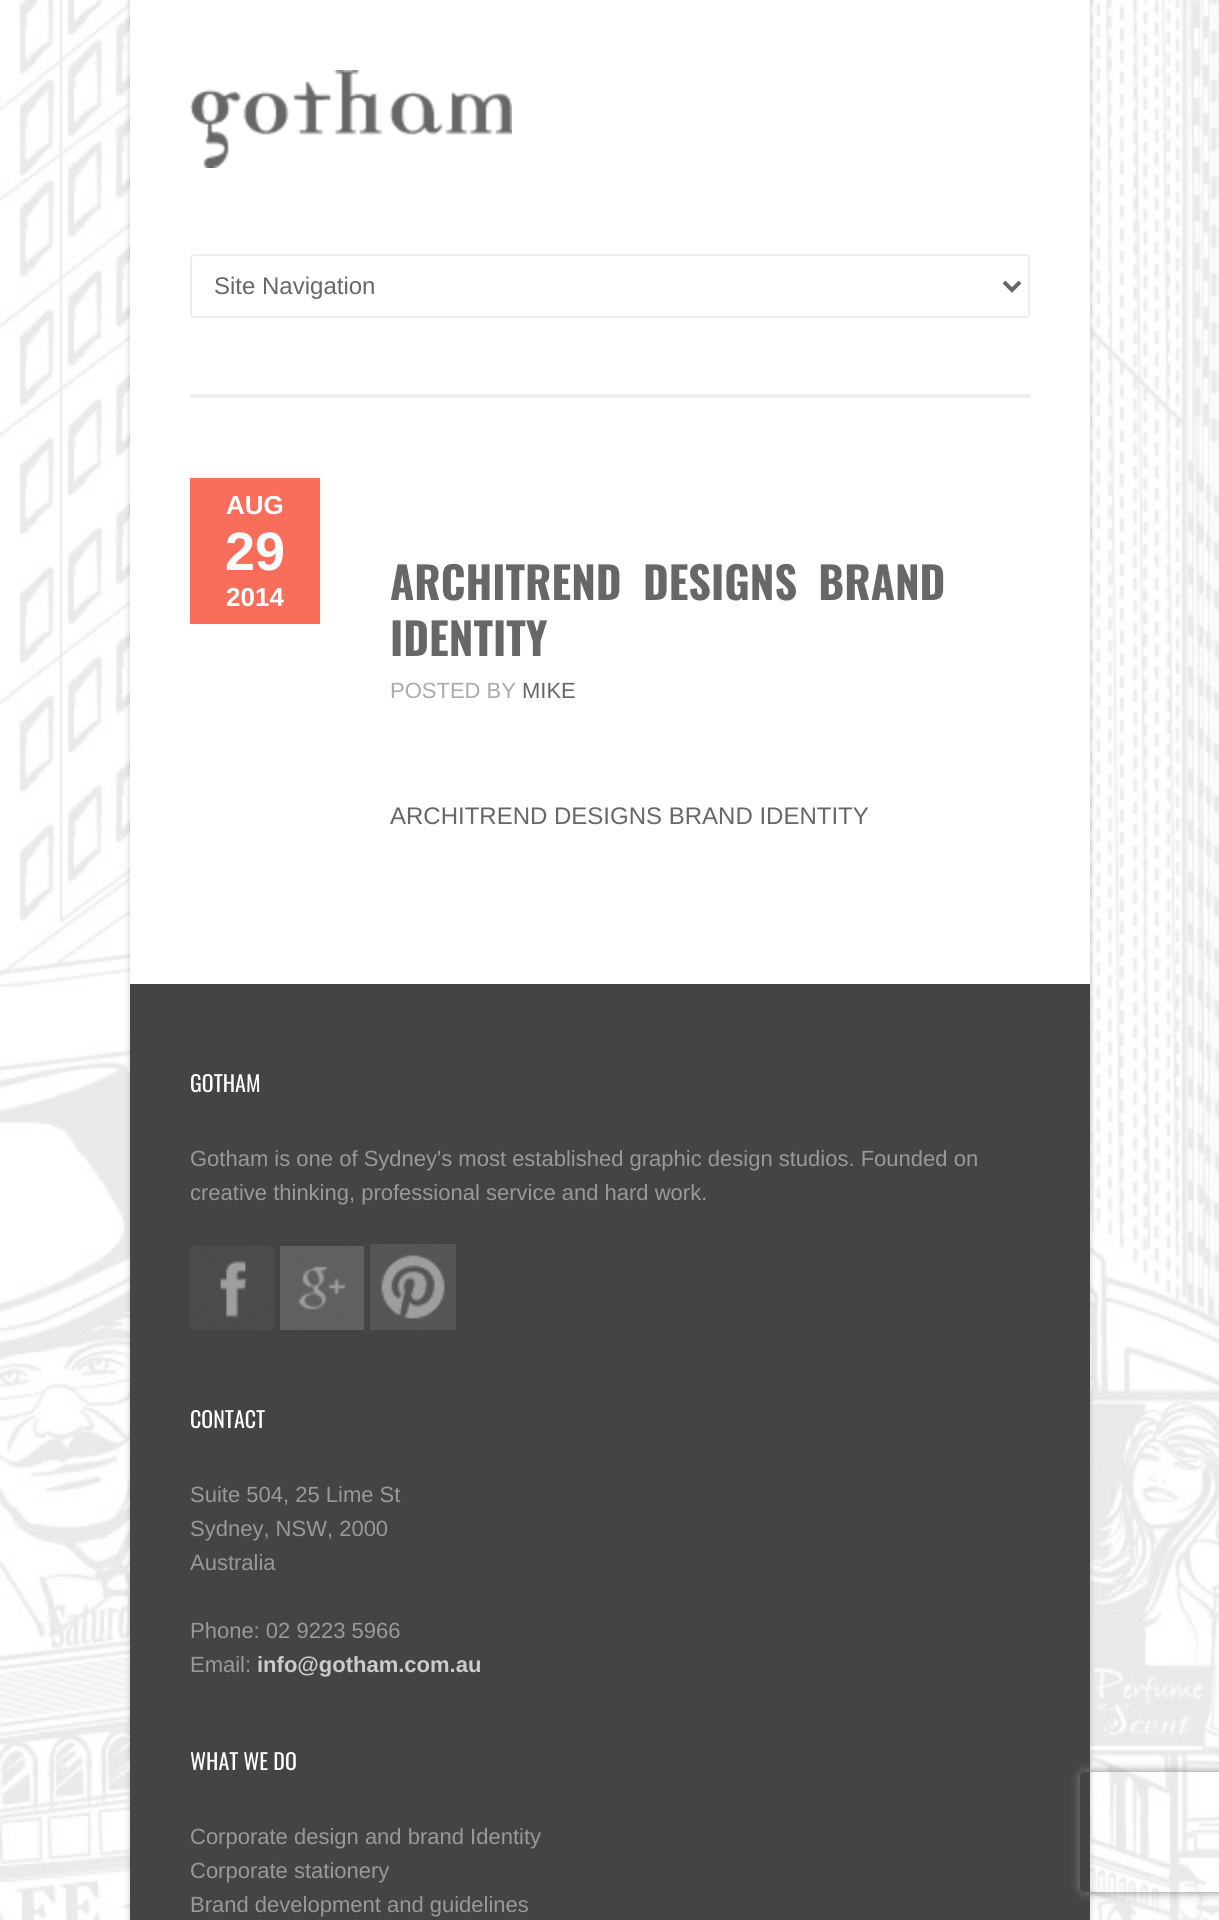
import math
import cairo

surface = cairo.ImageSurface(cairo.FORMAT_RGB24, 1219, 1920)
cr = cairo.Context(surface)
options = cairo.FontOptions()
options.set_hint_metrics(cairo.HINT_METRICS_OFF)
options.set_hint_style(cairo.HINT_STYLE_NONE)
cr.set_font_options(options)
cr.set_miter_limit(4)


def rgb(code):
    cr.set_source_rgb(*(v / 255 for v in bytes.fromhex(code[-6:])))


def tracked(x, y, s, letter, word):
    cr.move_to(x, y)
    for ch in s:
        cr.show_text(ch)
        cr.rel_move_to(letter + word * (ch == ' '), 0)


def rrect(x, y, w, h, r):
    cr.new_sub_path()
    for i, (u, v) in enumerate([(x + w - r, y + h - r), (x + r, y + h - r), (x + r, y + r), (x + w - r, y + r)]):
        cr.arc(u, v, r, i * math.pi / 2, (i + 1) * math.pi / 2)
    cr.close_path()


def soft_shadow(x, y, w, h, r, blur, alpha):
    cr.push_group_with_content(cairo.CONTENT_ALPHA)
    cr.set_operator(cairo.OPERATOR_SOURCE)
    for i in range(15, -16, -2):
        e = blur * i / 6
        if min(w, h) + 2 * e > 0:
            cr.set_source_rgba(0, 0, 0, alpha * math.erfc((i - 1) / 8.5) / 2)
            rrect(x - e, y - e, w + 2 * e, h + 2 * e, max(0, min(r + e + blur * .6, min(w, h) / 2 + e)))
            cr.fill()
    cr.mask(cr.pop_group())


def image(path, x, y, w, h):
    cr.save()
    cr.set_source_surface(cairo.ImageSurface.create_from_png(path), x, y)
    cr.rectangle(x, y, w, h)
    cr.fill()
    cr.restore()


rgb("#ffffff")
cr.paint()
image("img/1.png", 0, 0, 1219, 1920)
rgb("#000000")
soft_shadow(130, 0, 960, 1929, 0, 3, 0.2)
rgb("#ffffff")
cr.rectangle(130, 0, 960, 984)
cr.fill()
rgb("#eeeeee")
cr.rectangle(190, 394, 840, 4)
cr.fill()
image("img/2.png", 190, 70, 322, 98)
rrect(191, 255, 838, 62, 3)
cr.stroke()
cr.new_path()
cr.move_to(1004, 282)
cr.line_to(1012, 290)
cr.line_to(1020, 282)
rgb("#676767")
cr.set_line_width(4)
cr.stroke()
rgb("#f96e5b")
cr.rectangle(190, 478, 130, 146)
cr.fill()
rgb("#444444")
cr.rectangle(130, 984, 960, 936)
cr.fill()
image("img/3.png", 190, 1246, 84, 84)
image("img/4.png", 280, 1246, 84, 84)
image("img/5.png", 370, 1244, 86, 86)
cr.save()
cr.set_fill_rule(cairo.FILL_RULE_EVEN_ODD)
cr.new_path()
cr.move_to(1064, 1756)
cr.line_to(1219, 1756)
cr.line_to(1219, 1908)
cr.line_to(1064, 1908)
cr.close_path()
cr.move_to(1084, 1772)
cr.line_to(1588, 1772)
cr.curve_to(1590, 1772, 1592, 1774, 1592, 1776)
cr.line_to(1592, 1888)
cr.curve_to(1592, 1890, 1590, 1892, 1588, 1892)
cr.line_to(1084, 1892)
cr.curve_to(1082, 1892, 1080, 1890, 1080, 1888)
cr.line_to(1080, 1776)
cr.curve_to(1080, 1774, 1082, 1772, 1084, 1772)
cr.close_path()
cr.clip()
rgb("#808080")
soft_shadow(1080, 1772, 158, 120, 4, 5, 1)
cr.restore()
cr.select_font_face("Liberation Sans")
cr.set_font_size(24)
rgb("#676767")
cr.move_to(214, 294)
cr.show_text("Site Navigation")
cr.select_font_face("Liberation Sans", cairo.FONT_SLANT_NORMAL, cairo.FONT_WEIGHT_BOLD)
cr.set_font_size(26)
rgb("#ffffff")
cr.move_to(226, 514)
cr.show_text("AUG")
cr.set_font_size(54)
cr.move_to(225, 570)
cr.show_text("29")
cr.set_font_size(26)
cr.move_to(226, 606)
cr.show_text("2014")
cr.select_font_face("Oswald", cairo.FONT_SLANT_NORMAL, cairo.FONT_WEIGHT_BOLD)
cr.set_font_size(44)
rgb("#676767")
tracked(390, 600, "ARCHITREND DESIGNS BRAND", 0, 10)
cr.move_to(390, 656)
cr.show_text("IDENTITY")
cr.select_font_face("Liberation Sans")
cr.set_font_size(22)
rgb("#aaaaaa")
cr.move_to(390, 698)
cr.show_text("POSTED BY")
rgb("#676767")
cr.move_to(522, 698)
cr.show_text("MIKE")
cr.set_font_size(24)
cr.move_to(390, 824)
cr.show_text("ARCHITREND DESIGNS BRAND IDENTITY")
cr.select_font_face("Oswald")
cr.set_font_size(22)
rgb("#ffffff")
cr.move_to(190, 1092)
cr.show_text("GOTHAM")
cr.select_font_face("Liberation Sans")
rgb("#999999")
cr.move_to(190, 1166)
cr.show_text("Gotham is one of Sydney's most established graphic design studios. Founded on")
cr.move_to(190, 1200)
cr.show_text("creative thinking, professional service and hard work.")
cr.select_font_face("Oswald")
rgb("#ffffff")
cr.move_to(190, 1428)
cr.show_text("CONTACT")
cr.select_font_face("Liberation Sans")
rgb("#999999")
for x, y, s in [
    (190, 1502, "Suite 504, 25 Lime St"),
    (190, 1536, "Sydney, NSW, 2000"),
    (190, 1570, "Australia"),
    (190, 1638, "Phone: 02 9223 5966"),
    (190, 1672, "Email:"),
]:
    cr.move_to(x, y)
    cr.show_text(s)
cr.select_font_face("Liberation Sans", cairo.FONT_SLANT_NORMAL, cairo.FONT_WEIGHT_BOLD)
rgb("#cccccc")
cr.move_to(257, 1672)
cr.show_text("info@gotham.com.au")
cr.select_font_face("Oswald")
rgb("#ffffff")
cr.move_to(190, 1770)
cr.show_text("WHAT WE DO")
cr.select_font_face("Liberation Sans")
rgb("#999999")
for x, y, s in [
    (190, 1844, "Corporate design and brand Identity"),
    (190, 1878, "Corporate stationery"),
    (190, 1912, "Brand development and guidelines"),
]:
    cr.move_to(x, y)
    cr.show_text(s)
surface.write_to_png("page.png")
